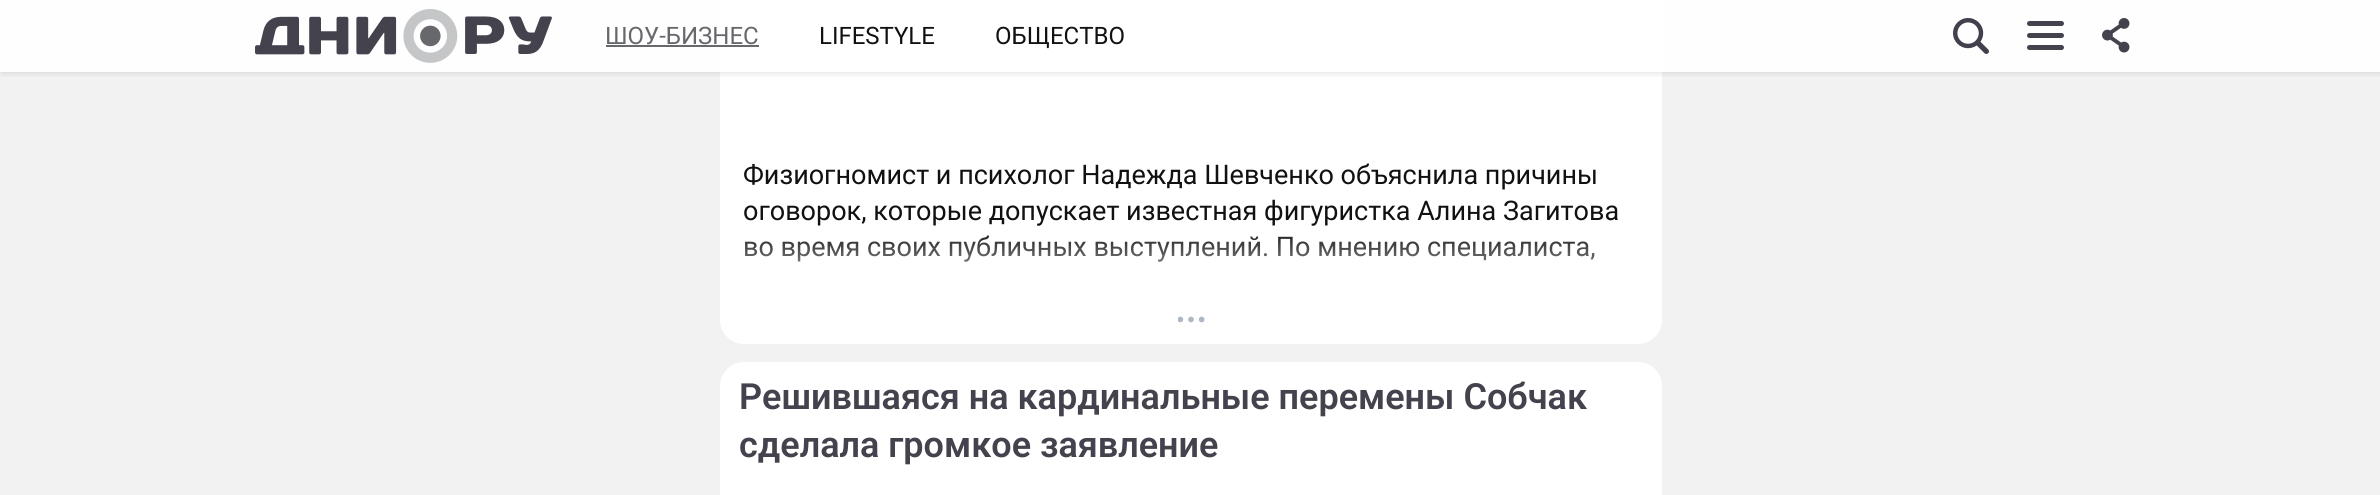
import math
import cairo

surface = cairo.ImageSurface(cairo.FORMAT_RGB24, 2380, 495)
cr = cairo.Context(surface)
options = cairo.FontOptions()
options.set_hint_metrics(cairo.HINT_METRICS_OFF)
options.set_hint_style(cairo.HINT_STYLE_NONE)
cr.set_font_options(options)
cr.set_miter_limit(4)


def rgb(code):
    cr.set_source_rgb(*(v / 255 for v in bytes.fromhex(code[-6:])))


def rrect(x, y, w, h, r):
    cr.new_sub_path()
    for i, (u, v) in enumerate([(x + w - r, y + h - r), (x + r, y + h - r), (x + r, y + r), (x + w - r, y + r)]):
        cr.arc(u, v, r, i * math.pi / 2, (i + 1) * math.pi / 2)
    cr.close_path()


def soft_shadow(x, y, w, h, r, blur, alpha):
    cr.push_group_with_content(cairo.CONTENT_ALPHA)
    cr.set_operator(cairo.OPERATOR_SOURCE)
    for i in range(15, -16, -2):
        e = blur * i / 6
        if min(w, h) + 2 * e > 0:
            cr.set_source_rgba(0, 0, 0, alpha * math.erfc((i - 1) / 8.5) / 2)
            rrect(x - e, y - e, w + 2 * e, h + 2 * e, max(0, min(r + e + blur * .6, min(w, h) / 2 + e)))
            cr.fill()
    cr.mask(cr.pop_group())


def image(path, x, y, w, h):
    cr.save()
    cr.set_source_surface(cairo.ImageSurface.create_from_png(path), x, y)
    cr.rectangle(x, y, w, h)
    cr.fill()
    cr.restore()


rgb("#f2f2f2")
cr.paint()
rgb("#fefefe")
cr.rectangle(0, 0, 2380, 72)
cr.fill()
rgb("#ffffff")
rrect(720, -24, 942, 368, 24)
cr.fill()
cr.save()
cr.rectangle(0, 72, 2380, 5)
cr.clip()
rgb("#000000")
soft_shadow(2, 2, 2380, 72, 0, 3, 0.1)
cr.restore()
image("img/1.png", 255, 9, 297, 54)
rgb("#66686c")
cr.rectangle(606, 45, 153, 2)
cr.fill()
image("img/2.png", 1953, 18, 36, 36)
rgb("#43424d")
rrect(2027, 33, 37, 5, 2.5)
cr.fill()
rrect(2027, 21, 37, 5, 2.5)
cr.fill()
rrect(2027, 45, 37, 5, 2.5)
cr.fill()
image("img/3.png", 2102, 18, 28, 35)
image("img/4.png", 1178, 316, 27, 7)
rgb("#ffffff")
rrect(720, 362, 942, 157, 24)
cr.fill()
cr.select_font_face("Roboto")
cr.set_font_size(24)
rgb("#66686c")
cr.move_to(605, 44)
cr.show_text("ШОУ-БИЗНЕС")
rgb("#111111")
cr.move_to(819, 44)
cr.show_text("LIFESTYLE")
cr.move_to(995, 44)
cr.show_text("ОБЩЕСТВО")
cr.set_font_size(27)
for x, y, s in [
    (743, 184, "Физиогномист и психолог Надежда Шевченко объяснила причины"),
    (743, 220, "оговорок, которые допускает известная фигуристка Алина Загитова"),
    (743, 256, "во время своих публичных выступлений. По мнению специалиста,"),
]:
    cr.move_to(x, y)
    cr.show_text(s)
gradient = cairo.LinearGradient(1191, 228, 1191, 303)
gradient.add_color_stop_rgba(0, 1, 1, 1, 0)
gradient.add_color_stop_rgba(1, 1, 1, 1, 0.9)
cr.set_source(gradient)
cr.rectangle(745, 235, 850, 27)
cr.fill()
cr.select_font_face("Roboto SemiBold")
cr.set_font_size(36)
rgb("#43424d")
cr.move_to(739, 409)
cr.show_text("Решившаяся на кардинальные перемены Собчак")
cr.move_to(739, 457)
cr.show_text("сделала громкое заявление")
surface.write_to_png("page.png")
